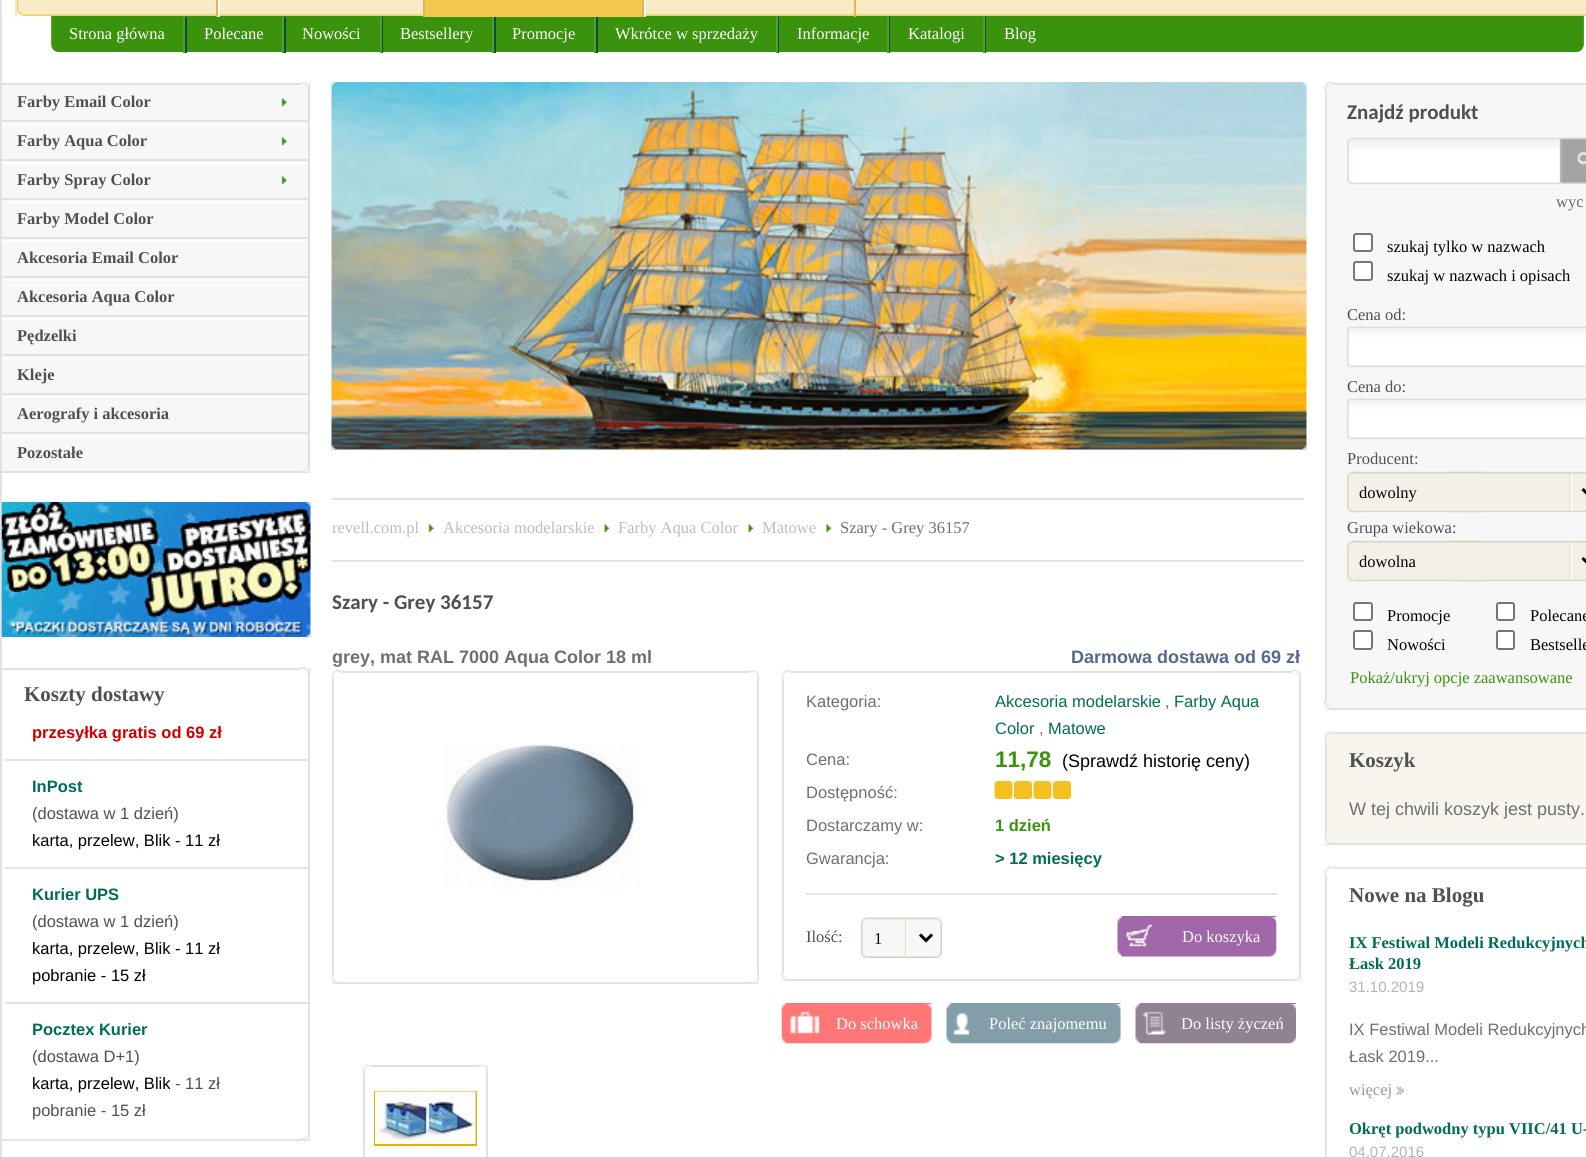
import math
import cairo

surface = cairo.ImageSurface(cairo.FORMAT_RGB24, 1586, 1157)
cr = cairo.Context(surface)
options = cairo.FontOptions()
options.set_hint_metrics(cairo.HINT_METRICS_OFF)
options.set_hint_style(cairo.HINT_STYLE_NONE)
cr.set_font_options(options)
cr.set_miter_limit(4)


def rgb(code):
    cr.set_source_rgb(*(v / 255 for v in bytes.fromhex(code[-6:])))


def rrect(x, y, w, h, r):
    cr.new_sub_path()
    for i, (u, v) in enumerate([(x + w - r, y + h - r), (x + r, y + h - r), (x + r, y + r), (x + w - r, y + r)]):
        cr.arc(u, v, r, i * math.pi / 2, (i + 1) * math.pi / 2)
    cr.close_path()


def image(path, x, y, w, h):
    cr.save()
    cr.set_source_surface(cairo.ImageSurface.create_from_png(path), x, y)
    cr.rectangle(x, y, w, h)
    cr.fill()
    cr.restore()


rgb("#ffffff")
cr.paint()
rgb("#e3e2df")
cr.rectangle(0, 0, 2, 1157)
cr.fill()
image("img/1.png", 17, 0, 1569, 16)
image("img/2.png", 51, 16, 1533, 36)
for x, y, w, h, color in [
    (216, 0, 2, 17, "#ecb255"),
    (15, 0, 2, 17, "#f8ecc6"),
    (423, 0, 2, 17, "#ecb255"),
    (218, 0, 2, 17, "#fdfaf1"),
    (425, 0, 217, 17, "#f2c94e"),
    (642, 0, 2, 17, "#ecb255"),
    (854, 0, 2, 17, "#ecb255"),
    (644, 0, 2, 17, "#fdfaf1"),
    (185, 17, 2, 36, "#005240"),
    (183, 17, 2, 36, "#539f2a"),
    (284, 17, 2, 36, "#005240"),
    (282, 17, 2, 36, "#539f2a"),
    (382, 17, 1, 36, "#005240"),
    (380, 17, 2, 36, "#539f2a"),
    (494, 17, 2, 36, "#005240"),
    (492, 17, 2, 36, "#539f2a"),
    (596, 17, 2, 36, "#005240"),
    (594, 17, 2, 36, "#539f2a"),
    (778, 17, 1, 36, "#005240"),
    (776, 17, 2, 36, "#539f2a"),
    (889, 17, 1, 36, "#005240"),
    (887, 17, 2, 36, "#539f2a"),
    (985, 17, 1, 36, "#005240"),
    (983, 17, 2, 36, "#539f2a"),
    (2, 85, 306, 386, "#f7f7f7"),
    (2, 83, 307, 2, "#e0e0e0"),
    (308, 83, 2, 390, "#e0e0e0"),
]:
    rgb(color)
    cr.rectangle(x, y, w, h)
    cr.fill()
image("img/3.png", 301, 82, 9, 8)
cr.rectangle(2, 471, 307, 2)
cr.fill()
rgb("#e3e2df")
cr.rectangle(2, 120, 306, 2)
cr.fill()
image("img/4.png", 281, 98, 6, 9)
cr.rectangle(2, 159, 306, 2)
cr.fill()
rgb("#fdfdfd")
cr.rectangle(2, 123, 304, 2)
cr.fill()
image("img/4.png", 281, 137, 6, 9)
rgb("#e3e2df")
cr.rectangle(2, 198, 306, 2)
cr.fill()
rgb("#fdfdfd")
cr.rectangle(2, 162, 304, 2)
cr.fill()
image("img/4.png", 281, 176, 6, 9)
for x, y, w, h, color in [
    (2, 237, 306, 2, "#e3e2df"),
    (2, 201, 304, 2, "#fdfdfd"),
    (2, 276, 306, 2, "#e3e2df"),
    (2, 240, 304, 2, "#fdfdfd"),
    (2, 315, 306, 2, "#e3e2df"),
    (2, 279, 304, 2, "#fdfdfd"),
    (2, 354, 306, 2, "#e3e2df"),
    (2, 318, 304, 2, "#fdfdfd"),
    (2, 393, 306, 2, "#e3e2df"),
    (2, 357, 304, 2, "#fdfdfd"),
    (2, 432, 306, 2, "#e3e2df"),
    (2, 396, 304, 2, "#fdfdfd"),
    (2, 435, 304, 2, "#fdfdfd"),
]:
    rgb(color)
    cr.rectangle(x, y, w, h)
    cr.fill()
image("img/5.png", 301, 464, 9, 9)
image("img/6.png", 1, 502, 310, 135)
image("img/7.png", 306, 502, 5, 5)
image("img/8.png", 306, 632, 5, 5)
rgb("#e3e2df")
cr.rectangle(308, 668, 2, 472)
cr.fill()
image("img/9.png", 300, 667, 9, 9)
for x, y, w, h, color in [
    (2, 668, 298, 2, "#e3e2df"),
    (2, 1139, 307, 2, "#e3e2df"),
    (5, 759, 303, 2, "#e3e2df"),
    (5, 867, 303, 2, "#e3e2df"),
    (5, 1002, 303, 2, "#e3e2df"),
]:
    rgb(color)
    cr.rectangle(x, y, w, h)
    cr.fill()
image("img/10.png", 300, 1130, 9, 10)
image("img/11.png", 331, 82, 976, 368)
image("img/12.png", 331, 82, 6, 5)
image("img/13.png", 1302, 82, 5, 5)
image("img/14.png", 331, 445, 7, 5)
image("img/15.png", 1302, 445, 5, 5)
for x, y, w, h, color in [
    (1327, 85, 259, 623, "#f7f7f7"),
    (1325, 83, 261, 2, "#e3e2df"),
    (1325, 708, 261, 2, "#e3e2df"),
    (1325, 83, 2, 627, "#e3e2df"),
]:
    rgb(color)
    cr.rectangle(x, y, w, h)
    cr.fill()
image("img/16.png", 1324, 82, 10, 9)
image("img/17.png", 1347, 137, 215, 48)
image("img/18.png", 1561, 137, 25, 47)
rgb("#ffffff")
rrect(1354, 234, 18, 17, 2)
cr.fill_preserve()
rgb("#767676")
cr.stroke()
rgb("#ffffff")
rrect(1354, 262, 18, 18, 2)
cr.fill_preserve()
rgb("#767676")
cr.stroke()
image("img/19.png", 1347, 326, 124, 42)
image("img/20.png", 1364, 326, 125, 42)
image("img/21.png", 1350, 326, 236, 42)
image("img/19.png", 1347, 398, 124, 42)
image("img/20.png", 1364, 398, 125, 42)
image("img/21.png", 1350, 398, 236, 42)
image("img/22.png", 1347, 471, 127, 42)
image("img/23.png", 1353, 471, 233, 42)
image("img/24.png", 1353, 471, 216, 42)
cr.new_path()
cr.move_to(1582.5, 489)
cr.line_to(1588.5, 495)
cr.line_to(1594.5, 489)
rgb("#000000")
cr.set_line_width(3)
cr.stroke()
image("img/22.png", 1347, 540, 127, 42)
image("img/23.png", 1353, 540, 233, 42)
image("img/24.png", 1353, 540, 216, 42)
cr.new_path()
cr.move_to(1582.5, 558)
cr.line_to(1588.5, 564)
cr.line_to(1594.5, 558)
cr.stroke()
rgb("#ffffff")
rrect(1354, 603, 18, 17, 2)
cr.fill_preserve()
rgb("#767676")
cr.set_line_width(2)
cr.stroke()
rgb("#ffffff")
rrect(1354, 631, 18, 18, 2)
cr.fill_preserve()
rgb("#767676")
cr.stroke()
rgb("#ffffff")
rrect(1497, 603, 17, 17, 2)
cr.fill_preserve()
rgb("#767676")
cr.stroke()
rgb("#ffffff")
rrect(1497, 631, 17, 18, 2)
cr.fill_preserve()
rgb("#767676")
cr.stroke()
image("img/25.png", 1324, 700, 10, 9)
for x, y, w, h, color in [
    (1327, 734, 259, 109, "#f7f5ee"),
    (1325, 732, 261, 2, "#e4e2df"),
    (1325, 843, 261, 2, "#e4e2df"),
    (1325, 732, 2, 113, "#e4e2df"),
]:
    rgb(color)
    cr.rectangle(x, y, w, h)
    cr.fill()
image("img/26.png", 1324, 731, 10, 10)
image("img/27.png", 1324, 835, 10, 9)
rgb("#e3e2df")
cr.rectangle(1325, 867, 261, 2)
cr.fill()
cr.rectangle(1325, 867, 2, 290)
cr.fill()
image("img/28.png", 1324, 866, 10, 10)
image("img/29.png", 1396, 1086, 8, 9)
cr.rectangle(332, 498, 972, 2)
cr.fill()
cr.rectangle(332, 560, 972, 2)
cr.fill()
image("img/30.png", 428, 524, 6, 9)
image("img/31.png", 604, 524, 6, 9)
image("img/31.png", 748, 524, 6, 9)
image("img/32.png", 826, 524, 6, 9)
cr.rectangle(333, 672, 425, 311)
cr.stroke()
image("img/33.png", 331, 670, 10, 9)
image("img/9.png", 750, 670, 9, 9)
image("img/34.png", 444, 744, 197, 145)
image("img/35.png", 331, 974, 9, 10)
image("img/36.png", 750, 974, 9, 10)
cr.rectangle(783, 672, 517, 308)
rgb("#e0e0e0")
cr.stroke()
image("img/37.png", 781, 670, 10, 9)
image("img/38.png", 1291, 670, 10, 9)
rgb("#e3e2df")
cr.rectangle(806, 893, 471, 2)
cr.fill()
image("img/39.png", 994, 781, 19, 18)
image("img/40.png", 1014, 781, 18, 18)
image("img/39.png", 1033, 781, 19, 18)
image("img/41.png", 1053, 781, 18, 18)
image("img/42.png", 1117, 916, 160, 41)
rgb("#ffffff")
cr.rectangle(1122, 917, 155, 40)
cr.fill()
image("img/43.png", 1122, 916, 155, 41)
image("img/44.png", 1126, 924, 27, 23)
image("img/45.png", 861, 917, 7, 41)
image("img/46.png", 904, 917, 38, 41)
image("img/47.png", 867, 917, 38, 41)
cr.new_path()
cr.move_to(920, 934.5)
cr.line_to(926, 940.5)
cr.line_to(932, 934.5)
rgb("#000000")
cr.set_line_width(3)
cr.stroke()
image("img/48.png", 781, 971, 9, 10)
image("img/49.png", 1292, 972, 9, 9)
image("img/50.png", 781, 1003, 151, 41)
rgb("#ffffff")
cr.rectangle(786, 1004, 146, 40)
cr.fill()
image("img/51.png", 786, 1003, 146, 41)
image("img/52.png", 790, 1011, 30, 23)
image("img/53.png", 946, 1003, 175, 41)
cr.rectangle(951, 1004, 170, 40)
cr.fill()
image("img/54.png", 951, 1003, 170, 41)
image("img/55.png", 953, 1013, 17, 22)
image("img/56.png", 1135, 1003, 161, 41)
cr.rectangle(1140, 1004, 156, 40)
cr.fill()
image("img/57.png", 1140, 1003, 156, 41)
image("img/58.png", 1142, 1011, 24, 24)
cr.rectangle(364, 1066, 123, 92)
rgb("#e0e0e0")
cr.set_line_width(2)
cr.stroke()
image("img/59.png", 363, 1064, 9, 10)
image("img/60.png", 478, 1064, 10, 9)
cr.rectangle(375, 1092, 101, 53)
rgb("#e0b400")
cr.stroke()
image("img/61.png", 375, 1091, 101, 53)
cr.select_font_face("Liberation Serif")
cr.set_font_size(16.5)
rgb("#ffffff")
for x, y, s in [
    (69, 39, "Strona główna"),
    (204, 39, "Polecane"),
    (302, 39, "Nowości"),
    (400, 39, "Bestsellery"),
    (512, 39, "Promocje"),
    (615, 39, "Wkrótce w sprzedaży"),
    (797, 39, "Informacje"),
    (908, 39, "Katalogi"),
    (1004, 39, "Blog"),
]:
    cr.move_to(x, y)
    cr.show_text(s)
cr.select_font_face("Liberation Serif", cairo.FONT_SLANT_NORMAL, cairo.FONT_WEIGHT_BOLD)
rgb("#505050")
for x, y, s in [
    (17, 107, "Farby Email Color"),
    (17, 146, "Farby Aqua Color"),
    (17, 185, "Farby Spray Color"),
    (17, 224, "Farby Model Color"),
    (17, 263, "Akcesoria Email Color"),
    (17, 302, "Akcesoria Aqua Color"),
    (17, 341, "Pędzelki"),
    (17, 380, "Kleje"),
    (17, 419, "Aerografy i akcesoria"),
    (17, 458, "Pozostałe"),
]:
    cr.move_to(x, y)
    cr.show_text(s)
cr.set_font_size(21)
cr.move_to(24, 701)
cr.show_text("Koszty dostawy")
cr.select_font_face("Liberation Sans", cairo.FONT_SLANT_NORMAL, cairo.FONT_WEIGHT_BOLD)
cr.set_font_size(16.5)
rgb("#cc0000")
cr.move_to(32, 738)
cr.show_text("przesyłka gratis od 69 zł")
rgb("#006d55")
cr.move_to(32, 792)
cr.show_text("InPost")
cr.select_font_face("Liberation Sans")
rgb("#505050")
cr.move_to(32, 819)
cr.show_text("(dostawa w 1 dzień)")
rgb("#000000")
cr.move_to(32, 846)
cr.show_text("karta, przelew, Blik - 11 zł")
cr.select_font_face("Liberation Sans", cairo.FONT_SLANT_NORMAL, cairo.FONT_WEIGHT_BOLD)
rgb("#006d55")
cr.move_to(32, 900)
cr.show_text("Kurier UPS")
cr.select_font_face("Liberation Sans")
rgb("#505050")
cr.move_to(32, 927)
cr.show_text("(dostawa w 1 dzień)")
rgb("#000000")
cr.move_to(32, 954)
cr.show_text("karta, przelew, Blik - 11 zł")
cr.move_to(32, 981)
cr.show_text("pobranie - 15 zł")
cr.select_font_face("Liberation Sans", cairo.FONT_SLANT_NORMAL, cairo.FONT_WEIGHT_BOLD)
rgb("#006d55")
cr.move_to(32, 1035)
cr.show_text("Pocztex Kurier")
cr.select_font_face("Liberation Sans")
rgb("#505050")
cr.move_to(32, 1062)
cr.show_text("(dostawa D+1)")
rgb("#000000")
cr.move_to(32, 1089)
cr.show_text("karta, przelew, Blik")
rgb("#505050")
cr.move_to(175, 1089)
cr.show_text("- 11 zł")
cr.move_to(32, 1116)
cr.show_text("pobranie - 15 zł")
cr.select_font_face("Carlito", cairo.FONT_SLANT_NORMAL, cairo.FONT_WEIGHT_BOLD)
cr.set_font_size(21)
cr.move_to(1347, 119)
cr.show_text("Znajdź produkt")
cr.select_font_face("Liberation Serif")
cr.set_font_size(16.5)
rgb("#606873")
cr.move_to(1556, 207)
cr.show_text("wyc")
rgb("#000000")
cr.move_to(1387, 252)
cr.show_text("szukaj tylko w nazwach")
cr.move_to(1387, 281)
cr.show_text("szukaj w nazwach i opisach")
rgb("#505050")
for x, y, s in [
    (1347, 320, "Cena od:"),
    (1347, 392, "Cena do:"),
    (1347, 464, "Producent:"),
]:
    cr.move_to(x, y)
    cr.show_text(s)
rgb("#000000")
cr.move_to(1359, 498)
cr.show_text("dowolny")
rgb("#505050")
cr.move_to(1347, 533)
cr.show_text("Grupa wiekowa:")
rgb("#000000")
for x, y, s in [
    (1359, 567, "dowolna"),
    (1387, 621, "Promocje"),
    (1387, 650, "Nowości"),
    (1530, 621, "Polecane"),
    (1530, 650, "Bestselle"),
]:
    cr.move_to(x, y)
    cr.show_text(s)
rgb("#3b920c")
cr.move_to(1350, 683)
cr.show_text("Pokaż/ukryj opcje zaawansowane")
cr.select_font_face("Liberation Serif", cairo.FONT_SLANT_NORMAL, cairo.FONT_WEIGHT_BOLD)
cr.set_font_size(21)
rgb("#505050")
cr.move_to(1349, 767)
cr.show_text("Koszyk")
cr.select_font_face("Liberation Sans")
cr.set_font_size(18)
rgb("#6f6f6f")
cr.move_to(1349, 815)
cr.show_text("W tej chwili koszyk jest pusty.")
cr.select_font_face("Liberation Serif", cairo.FONT_SLANT_NORMAL, cairo.FONT_WEIGHT_BOLD)
cr.set_font_size(21)
rgb("#505050")
cr.move_to(1349, 902)
cr.show_text("Nowe na Blogu")
cr.set_font_size(16.5)
rgb("#006d55")
cr.move_to(1349, 948)
cr.show_text("IX Festiwal Modeli Redukcyjnych")
cr.save()
cr.rectangle(1349, 932, 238, 186)
cr.clip()
cr.move_to(1349, 969)
cr.show_text("Łask 2019")
cr.restore()
cr.select_font_face("Liberation Sans")
cr.set_font_size(15)
rgb("#b4b4b4")
cr.move_to(1349, 992)
cr.show_text("31.10.2019")
cr.set_font_size(16.5)
rgb("#6f6f6f")
cr.move_to(1349, 1035)
cr.show_text("IX Festiwal Modeli Redukcyjnych")
cr.move_to(1349, 1062)
cr.show_text("Łask 2019...")
cr.select_font_face("Liberation Serif")
rgb("#999999")
cr.move_to(1349, 1095)
cr.show_text("więcej")
cr.select_font_face("Liberation Serif", cairo.FONT_SLANT_NORMAL, cairo.FONT_WEIGHT_BOLD)
rgb("#006d55")
cr.move_to(1349, 1134)
cr.show_text("Okręt podwodny typu VIIC/41 U-")
cr.select_font_face("Liberation Sans")
cr.set_font_size(15)
rgb("#b4b4b4")
cr.move_to(1349, 1157)
cr.show_text("04.07.2016")
cr.select_font_face("Liberation Serif")
cr.set_font_size(16.5)
rgb("#bdbdbd")
for x, y, s in [
    (332, 533, "revell.com.pl"),
    (443, 533, "Akcesoria modelarskie"),
    (618, 533, "Farby Aqua Color"),
    (762, 533, "Matowe"),
]:
    cr.move_to(x, y)
    cr.show_text(s)
rgb("#6f6f6f")
cr.move_to(840, 533)
cr.show_text("Szary - Grey 36157")
cr.select_font_face("Carlito", cairo.FONT_SLANT_NORMAL, cairo.FONT_WEIGHT_BOLD)
cr.set_font_size(21)
rgb("#505050")
cr.move_to(332, 609)
cr.show_text("Szary - Grey 36157")
cr.select_font_face("Liberation Sans", cairo.FONT_SLANT_NORMAL, cairo.FONT_WEIGHT_BOLD)
cr.set_font_size(18)
rgb("#6f6f6f")
cr.move_to(332, 663)
cr.show_text("grey, mat RAL 7000 Aqua Color 18 ml")
rgb("#55688f")
cr.move_to(1071, 663)
cr.show_text("Darmowa dostawa od 69 zł")
cr.select_font_face("Liberation Sans")
cr.set_font_size(16.5)
rgb("#6f6f6f")
cr.move_to(806, 707)
cr.show_text("Kategoria:")
rgb("#006d55")
cr.move_to(995, 707)
cr.show_text("Akcesoria modelarskie")
rgb("#6f6f6f")
cr.move_to(1165, 707)
cr.show_text(",")
rgb("#006d55")
cr.move_to(1174, 707)
cr.show_text("Farby Aqua")
cr.move_to(995, 734)
cr.show_text("Color")
rgb("#6f6f6f")
cr.move_to(1039, 734)
cr.show_text(",")
rgb("#006d55")
cr.move_to(1048, 734)
cr.show_text("Matowe")
rgb("#6f6f6f")
cr.move_to(806, 765)
cr.show_text("Cena:")
cr.select_font_face("Liberation Sans", cairo.FONT_SLANT_NORMAL, cairo.FONT_WEIGHT_BOLD)
cr.set_font_size(22.5)
rgb("#3b920c")
cr.move_to(995, 767)
cr.show_text("11,78")
cr.select_font_face("Liberation Sans")
cr.set_font_size(18)
rgb("#000000")
cr.move_to(1062, 767)
cr.show_text("(Sprawdź historię ceny)")
cr.set_font_size(16.5)
rgb("#6f6f6f")
cr.move_to(806, 798)
cr.show_text("Dostępność:")
cr.move_to(806, 831)
cr.show_text("Dostarczamy w:")
cr.select_font_face("Liberation Sans", cairo.FONT_SLANT_NORMAL, cairo.FONT_WEIGHT_BOLD)
rgb("#3b920c")
cr.move_to(995, 831)
cr.show_text("1 dzień")
cr.select_font_face("Liberation Sans")
rgb("#6f6f6f")
cr.move_to(806, 864)
cr.show_text("Gwarancja:")
cr.select_font_face("Liberation Sans", cairo.FONT_SLANT_NORMAL, cairo.FONT_WEIGHT_BOLD)
rgb("#006d55")
cr.move_to(995, 864)
cr.show_text("> 12 miesięcy")
cr.select_font_face("Liberation Serif")
rgb("#505050")
cr.move_to(806, 942)
cr.show_text("Ilość:")
rgb("#ffffff")
cr.move_to(1182, 942)
cr.show_text("Do koszyka")
rgb("#000000")
cr.move_to(874, 944)
cr.show_text("1")
rgb("#ffffff")
for x, y, s in [
    (836, 1029, "Do schowka"),
    (989, 1029, "Poleć znajomemu"),
    (1181, 1029, "Do listy życzeń"),
]:
    cr.move_to(x, y)
    cr.show_text(s)
surface.write_to_png("page.png")
